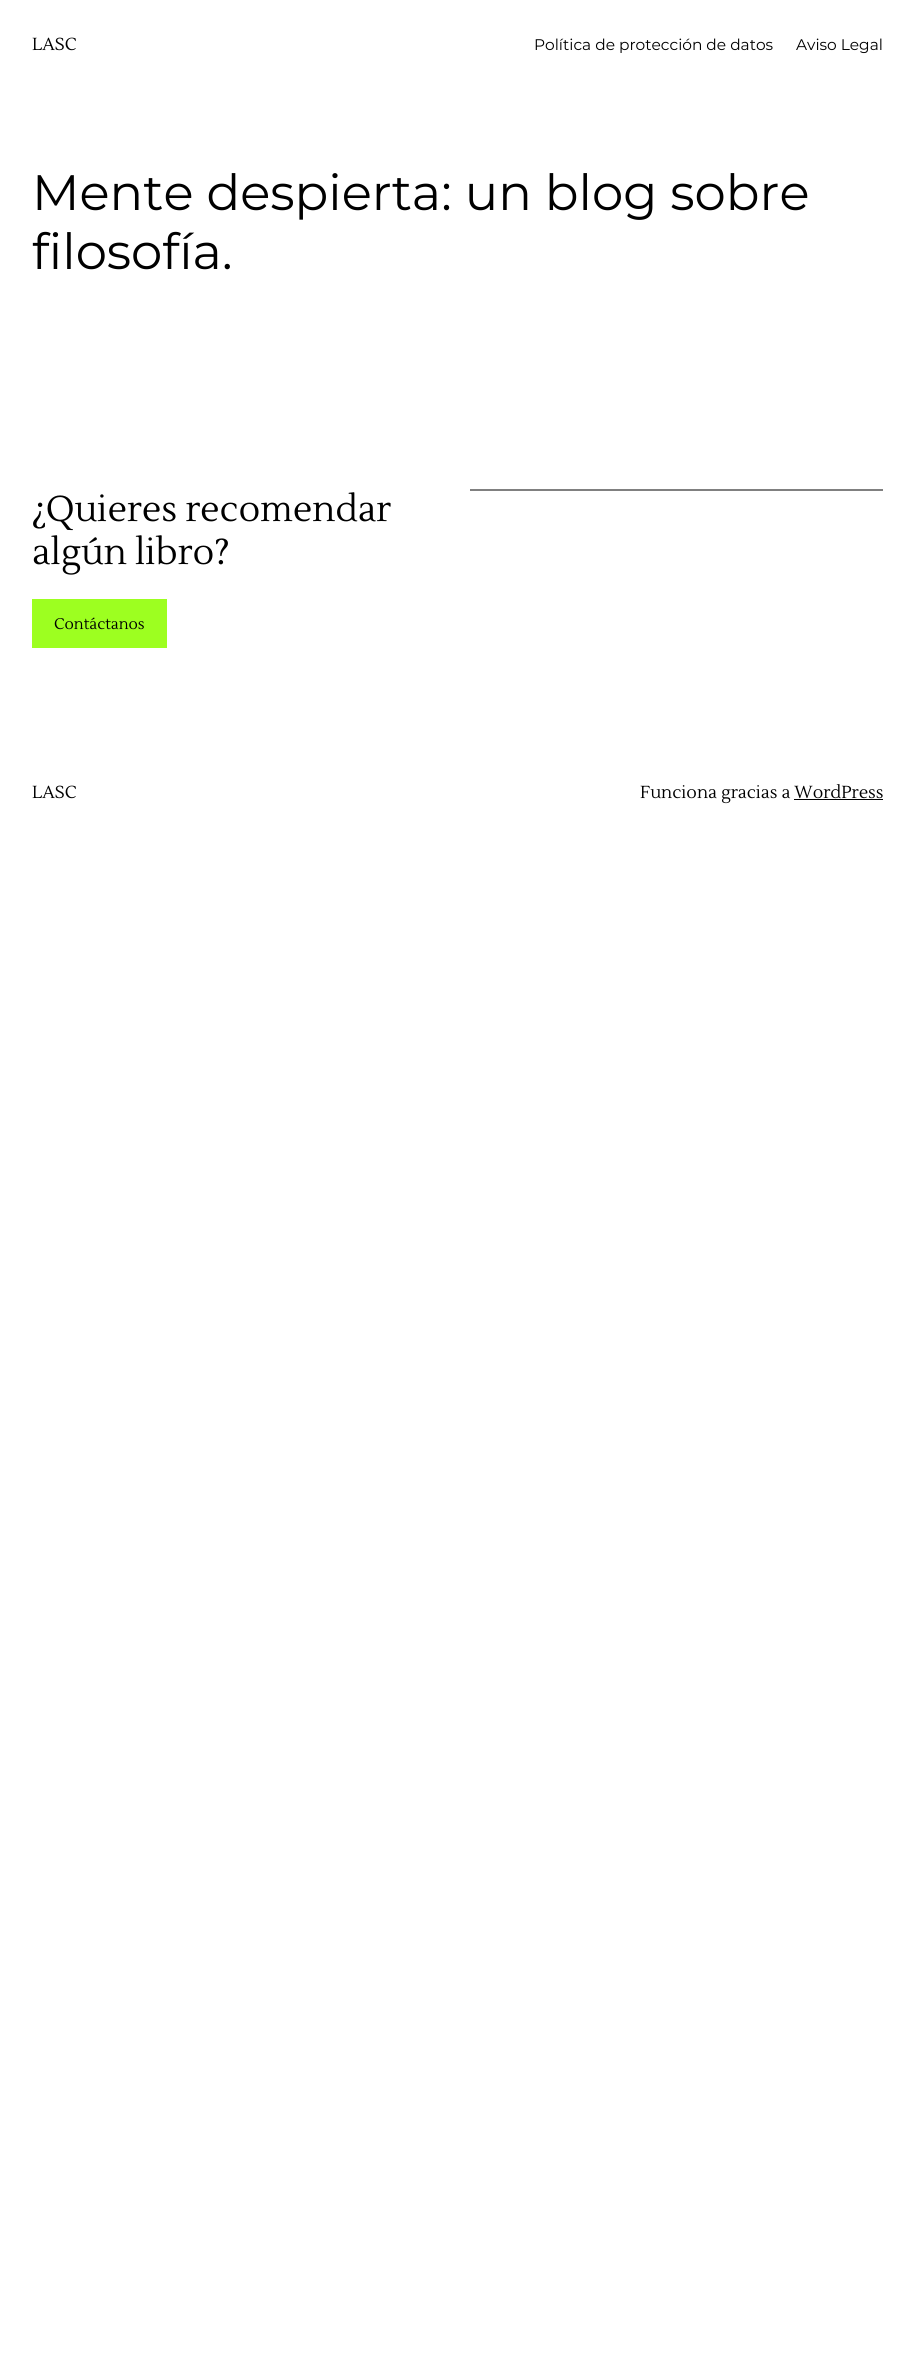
import math
import cairo

surface = cairo.ImageSurface(cairo.FORMAT_RGB24, 915, 2371)
cr = cairo.Context(surface)
options = cairo.FontOptions()
options.set_hint_metrics(cairo.HINT_METRICS_OFF)
options.set_hint_style(cairo.HINT_STYLE_NONE)
cr.set_font_options(options)
cr.set_miter_limit(4)


def rgb(code):
    cr.set_source_rgb(*(v / 255 for v in bytes.fromhex(code[-6:])))


rgb("#ffffff")
cr.paint()
for x, y, w, h, color in [
    (470, 489, 413, 2, "#808080"),
    (32, 599, 135, 49, "#9dff20"),
    (794, 799, 89, 1, "#000000"),
]:
    rgb(color)
    cr.rectangle(x, y, w, h)
    cr.fill()
cr.select_font_face("Lustria")
cr.set_font_size(17.4)
cr.move_to(32, 50)
cr.show_text("LASC")
cr.select_font_face("Montserrat Thin")
cr.set_font_size(15.4)
cr.move_to(534, 50)
cr.show_text("Política de protección de datos")
cr.move_to(796, 50)
cr.show_text("Aviso Legal")
cr.set_font_size(49.75)
cr.move_to(32, 210)
cr.show_text("Mente despierta: un blog sobre")
cr.move_to(32, 269)
cr.show_text("filosofía.")
cr.select_font_face("Lustria")
cr.set_font_size(36)
cr.move_to(32, 521)
cr.show_text("¿Quieres recomendar")
cr.move_to(32, 564)
cr.show_text("algún libro?")
cr.set_font_size(15.4)
cr.move_to(54, 629)
cr.show_text("Contáctanos")
cr.set_font_size(17.4)
cr.move_to(32, 798)
cr.show_text("LASC")
cr.move_to(640, 798)
cr.show_text("Funciona gracias a WordPress")
surface.write_to_png("page.png")
